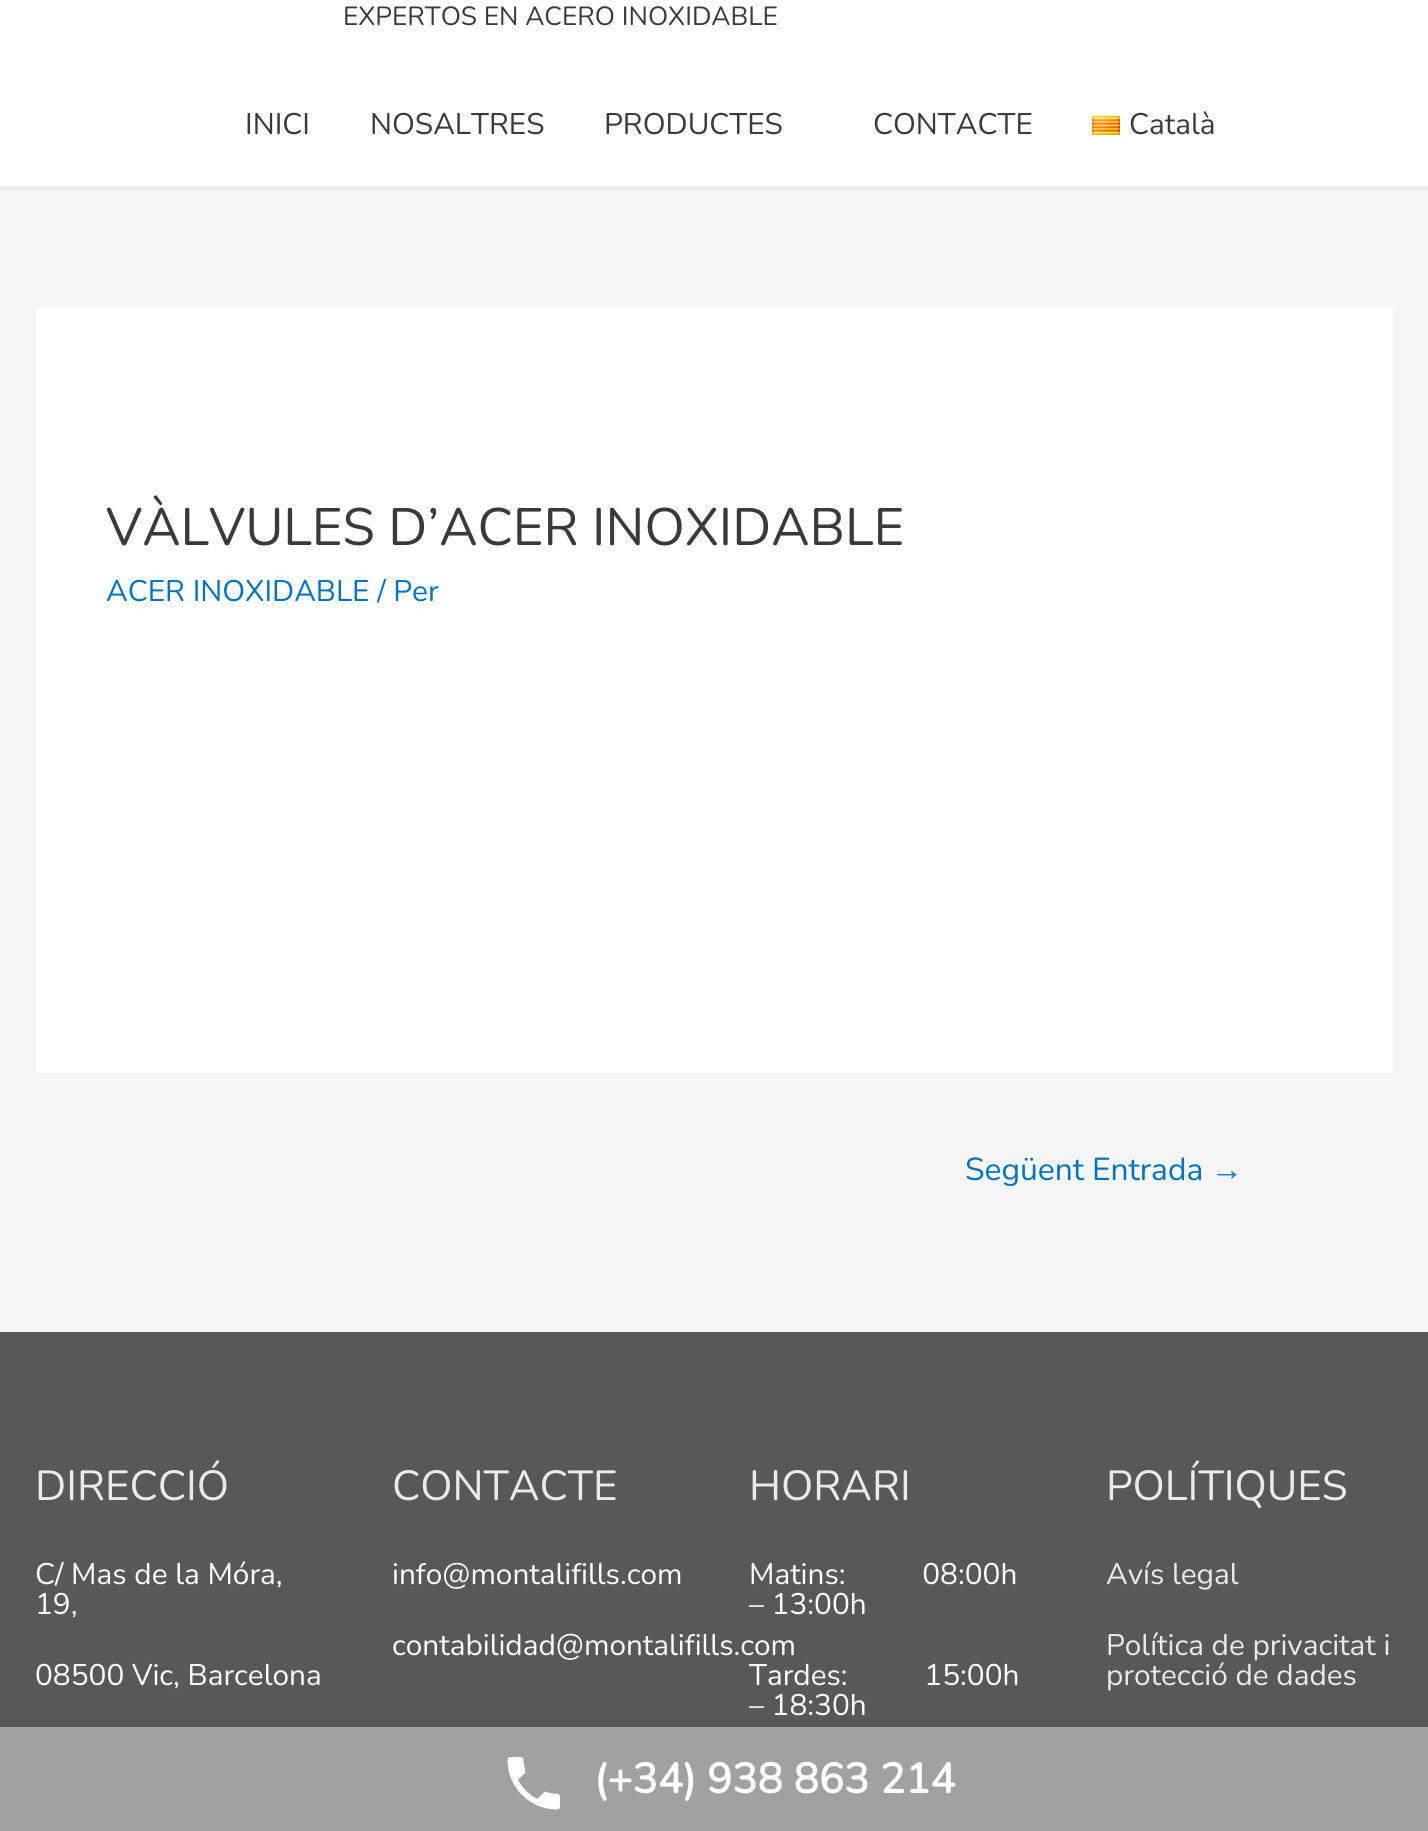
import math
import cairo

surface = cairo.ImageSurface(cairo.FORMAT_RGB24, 1428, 1831)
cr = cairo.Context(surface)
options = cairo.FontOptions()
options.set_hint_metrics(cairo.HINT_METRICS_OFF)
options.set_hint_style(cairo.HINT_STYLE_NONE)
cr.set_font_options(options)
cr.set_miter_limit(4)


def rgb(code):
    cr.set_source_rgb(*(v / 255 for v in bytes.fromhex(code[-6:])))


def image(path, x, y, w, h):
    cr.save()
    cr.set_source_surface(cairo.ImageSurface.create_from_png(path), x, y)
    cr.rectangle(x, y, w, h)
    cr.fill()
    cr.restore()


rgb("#f5f5f5")
cr.paint()
rgb("#ffffff")
cr.rectangle(0, 0, 1428, 186)
cr.fill()
rgb("#ededed")
cr.rectangle(0, 186, 1428, 4)
cr.fill()
image("img/1.png", 1092, 115, 28, 20)
for x, y, w, h, color in [
    (35, 308, 1358, 765, "#ffffff"),
    (0, 1332, 1428, 395, "#585858"),
    (0, 1727, 1428, 104, "#a1a1a1"),
]:
    rgb(color)
    cr.rectangle(x, y, w, h)
    cr.fill()
image("img/2.png", 507, 1757, 53, 53)
cr.select_font_face("Nunito ExtraLight")
cr.set_font_size(26.25)
rgb("#3a3a3a")
cr.move_to(343, 25)
cr.show_text("EXPERTOS EN ACERO INOXIDABLE")
cr.set_font_size(29.75)
for x, y, s in [
    (245, 134, "INICI"),
    (370, 134, "NOSALTRES"),
    (604, 134, "PRODUCTES"),
    (873, 134, "CONTACTE"),
    (1129, 134, "Català"),
]:
    cr.move_to(x, y)
    cr.show_text(s)
cr.set_font_size(52.5)
cr.move_to(106, 545)
cr.show_text("VÀLVULES D’ACER INOXIDABLE")
cr.set_font_size(29.75)
rgb("#0274be")
cr.move_to(106, 601)
cr.show_text("ACER INOXIDABLE / Per")
cr.set_font_size(31.75)
cr.move_to(965, 1180)
cr.show_text("Següent Entrada")
cr.select_font_face("Liberation Sans")
cr.move_to(1211, 1180)
cr.show_text("→")
cr.select_font_face("Nunito ExtraLight")
cr.set_font_size(42)
rgb("#eaeaea")
cr.move_to(35, 1500)
cr.show_text("DIRECCIÓ")
cr.set_font_size(29.75)
rgb("#ffffff")
for x, y, s in [
    (35, 1584, "C/ Mas de la Móra,"),
    (35, 1614, "19,"),
    (35, 1685, "08500 Vic, Barcelona"),
]:
    cr.move_to(x, y)
    cr.show_text(s)
cr.set_font_size(42)
rgb("#eaeaea")
cr.move_to(392, 1500)
cr.show_text("CONTACTE")
cr.set_font_size(29.75)
rgb("#ffffff")
cr.move_to(392, 1584)
cr.show_text("info@montalifills.com")
cr.move_to(392, 1655)
cr.show_text("contabilidad@montalifills.com")
cr.set_font_size(42)
rgb("#eaeaea")
cr.move_to(749, 1500)
cr.show_text("HORARI")
cr.set_font_size(29.75)
rgb("#ffffff")
for x, y, s in [
    (749, 1584, "Matins:          08:00h"),
    (749, 1614, "– 13:00h"),
    (749, 1685, "Tardes:          15:00h"),
    (749, 1715, "– 18:30h"),
]:
    cr.move_to(x, y)
    cr.show_text(s)
cr.set_font_size(42)
rgb("#eaeaea")
cr.move_to(1106, 1500)
cr.show_text("POLÍTIQUES")
cr.set_font_size(29.75)
for x, y, s in [
    (1106, 1584, "Avís legal"),
    (1106, 1655, "Política de privacitat i"),
    (1106, 1685, "protecció de dades"),
]:
    cr.move_to(x, y)
    cr.show_text(s)
cr.select_font_face("Nunito", cairo.FONT_SLANT_NORMAL, cairo.FONT_WEIGHT_BOLD)
cr.set_font_size(42)
rgb("#ffffff")
cr.move_to(594, 1793)
cr.show_text("(+34) 938 863 214")
surface.write_to_png("page.png")
